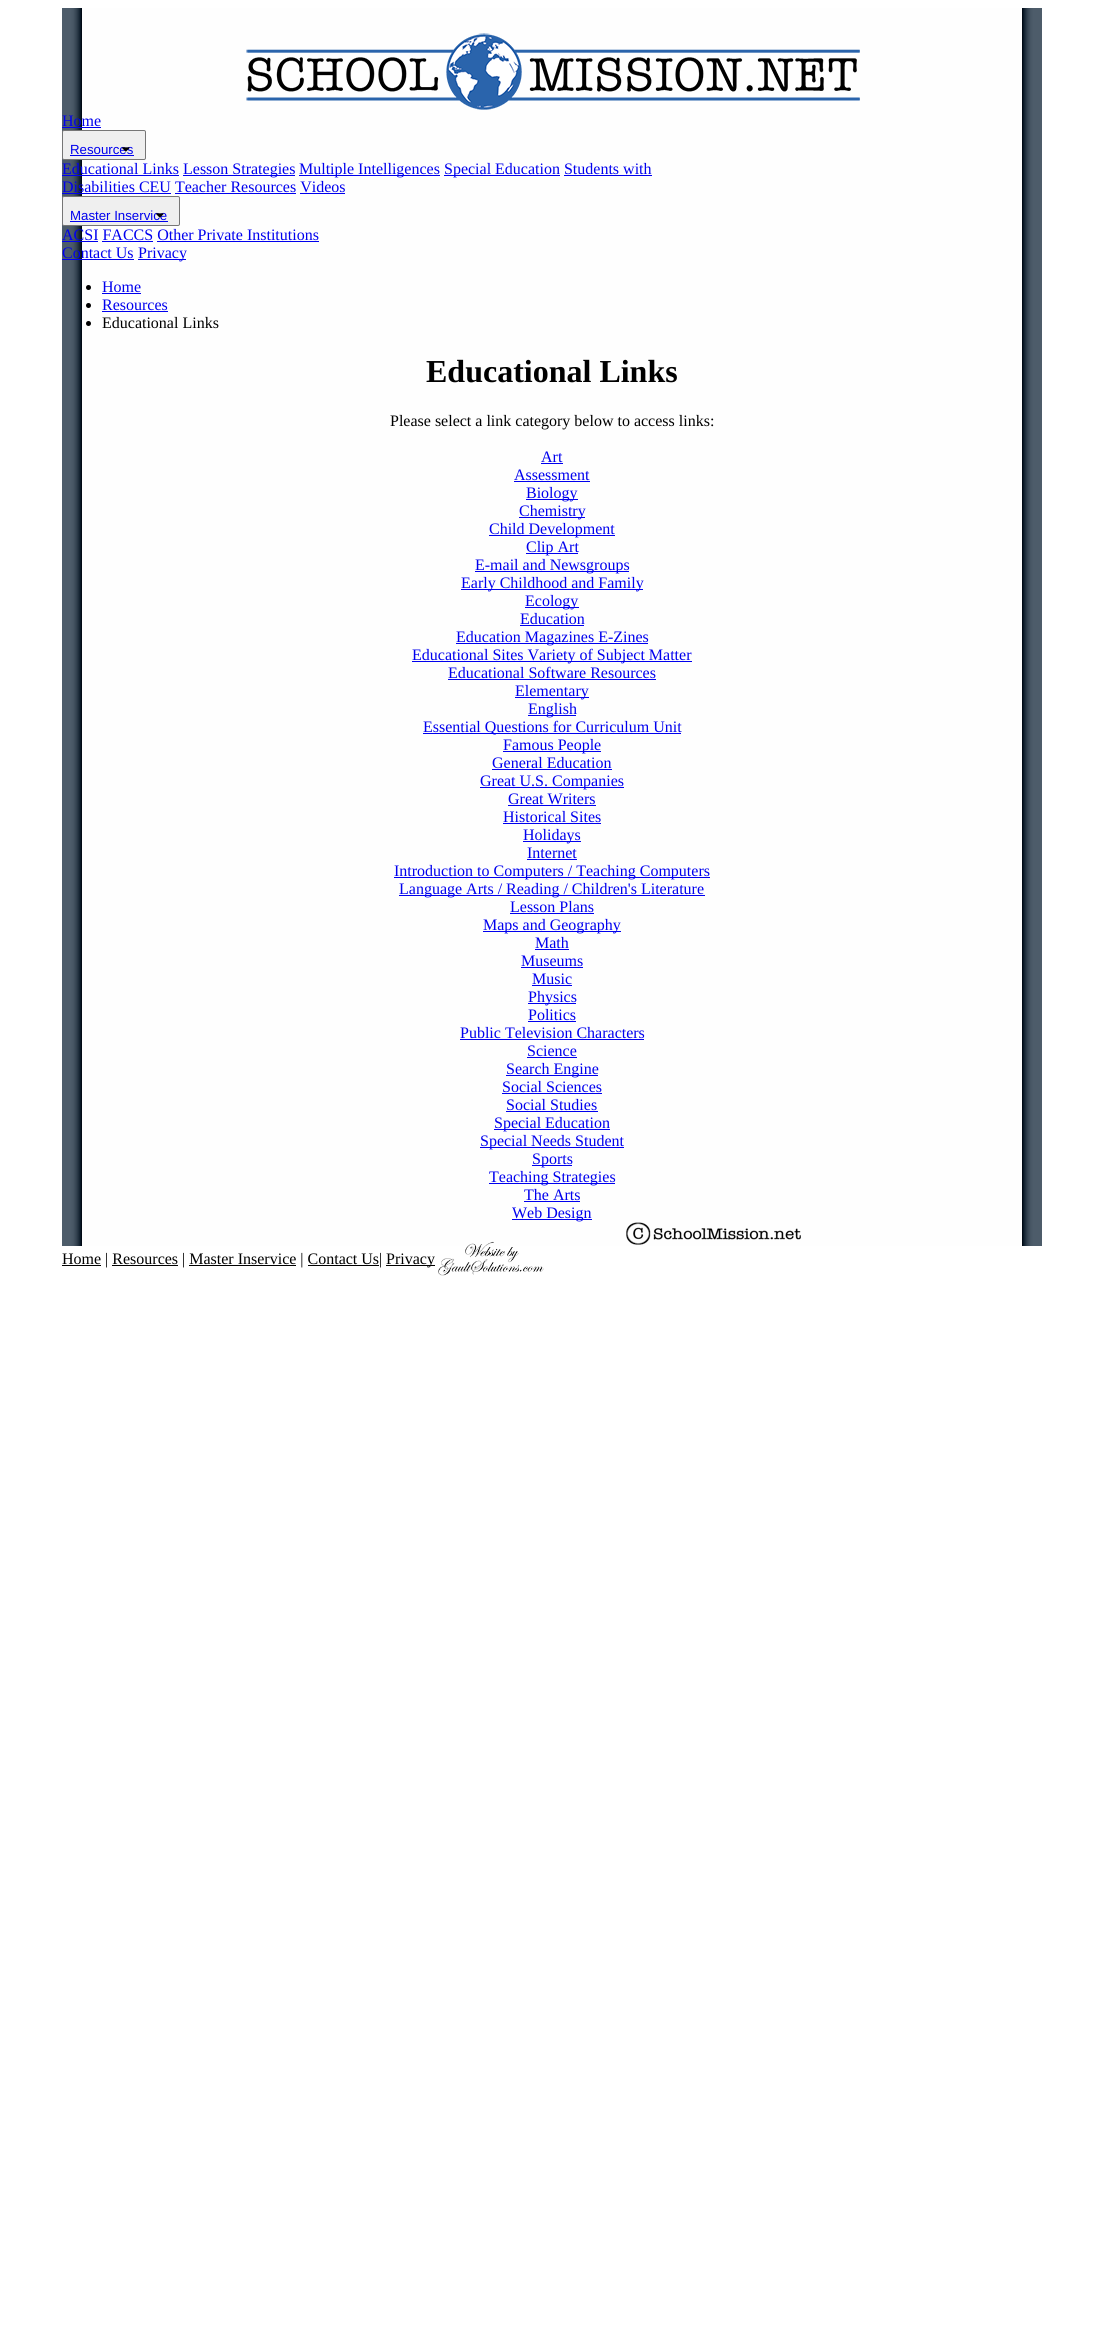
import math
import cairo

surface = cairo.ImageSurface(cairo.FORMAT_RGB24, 1104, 2349)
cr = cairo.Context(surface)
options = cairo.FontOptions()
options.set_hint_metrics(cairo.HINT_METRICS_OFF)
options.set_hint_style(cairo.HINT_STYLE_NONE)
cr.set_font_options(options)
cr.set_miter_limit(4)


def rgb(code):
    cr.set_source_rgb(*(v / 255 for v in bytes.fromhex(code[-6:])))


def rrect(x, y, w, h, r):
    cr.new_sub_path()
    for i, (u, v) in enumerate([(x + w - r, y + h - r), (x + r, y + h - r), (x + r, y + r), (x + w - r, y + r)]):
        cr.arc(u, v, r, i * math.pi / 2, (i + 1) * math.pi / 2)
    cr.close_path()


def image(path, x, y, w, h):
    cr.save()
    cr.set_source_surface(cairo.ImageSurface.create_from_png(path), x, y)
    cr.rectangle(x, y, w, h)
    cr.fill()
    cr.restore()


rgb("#ffffff")
cr.paint()
image("img/1.png", 62, 8, 980, 1238)
image("img/2.png", 246, 33, 614, 77)
rgb("#0000ee")
cr.rectangle(62, 127, 39, 1)
cr.fill()
rgb("#efefef")
rrect(62.5, 130.5, 83, 29, 1.5)
cr.fill_preserve()
rgb("#767676")
cr.set_line_width(1)
cr.stroke()
for x, y, w, h, color in [
    (70, 155, 64, 1, "#0000ee"),
    (62, 175, 117, 1, "#0000ee"),
    (183, 175, 112, 1, "#0000ee"),
    (299, 175, 141, 1, "#0000ee"),
    (444, 175, 116, 1, "#0000ee"),
    (564, 175, 88, 1, "#0000ee"),
    (62, 193, 109, 1, "#0000ee"),
    (175, 193, 121, 1, "#0000ee"),
    (300, 193, 45, 1, "#0000ee"),
]:
    rgb(color)
    cr.rectangle(x, y, w, h)
    cr.fill()
rgb("#efefef")
rrect(62.5, 196.5, 117, 29, 1.5)
cr.fill_preserve()
rgb("#767676")
cr.stroke()
for x, y, w, h, color in [
    (70, 221, 98, 1, "#0000ee"),
    (62, 241, 36, 1, "#0000ee"),
    (102, 241, 51, 1, "#0000ee"),
    (157, 241, 162, 1, "#0000ee"),
    (62, 259, 72, 1, "#0000ee"),
    (138, 259, 48, 1, "#0000ee"),
]:
    rgb(color)
    cr.rectangle(x, y, w, h)
    cr.fill()
rgb("#000000")
cr.arc(88.5, 287.5, 2.5, 0, 2 * math.pi)
cr.fill()
rgb("#0000ee")
cr.rectangle(102, 293, 39, 1)
cr.fill()
rgb("#000000")
cr.arc(88.5, 305.5, 2.5, 0, 2 * math.pi)
cr.fill()
rgb("#0000ee")
cr.rectangle(102, 311, 66, 1)
cr.fill()
rgb("#000000")
cr.arc(88.5, 323.5, 2.5, 0, 2 * math.pi)
cr.fill()
for x, y, w, h, color in [
    (541, 463, 22, 1, "#0000ee"),
    (514, 481, 76, 1, "#0000ee"),
    (526, 499, 52, 1, "#0000ee"),
    (519, 517, 66, 1, "#0000ee"),
    (489, 535, 126, 1, "#0000ee"),
    (526, 553, 52, 1, "#0000ee"),
    (475, 571, 154, 1, "#0000ee"),
    (461, 589, 182, 1, "#0000ee"),
    (525, 607, 54, 1, "#0000ee"),
    (520, 625, 64, 1, "#0000ee"),
    (456, 643, 192, 1, "#0000ee"),
    (412, 661, 280, 1, "#0000ee"),
    (448, 679, 208, 1, "#0000ee"),
    (515, 697, 74, 1, "#0000ee"),
    (528, 715, 48, 1, "#0000ee"),
    (423, 733, 258, 1, "#0000ee"),
    (503, 751, 98, 1, "#0000ee"),
    (492, 769, 120, 1, "#0000ee"),
    (480, 787, 144, 1, "#0000ee"),
    (508, 805, 88, 1, "#0000ee"),
    (503, 823, 98, 1, "#0000ee"),
    (523, 841, 58, 1, "#0000ee"),
    (527, 859, 50, 1, "#0000ee"),
    (394, 877, 316, 1, "#0000ee"),
    (399, 895, 306, 1, "#0000ee"),
    (510, 913, 84, 1, "#0000ee"),
    (483, 931, 138, 1, "#0000ee"),
    (535, 949, 34, 1, "#0000ee"),
    (521, 967, 62, 1, "#0000ee"),
    (532, 985, 40, 1, "#0000ee"),
    (528, 1003, 48, 1, "#0000ee"),
    (528, 1021, 48, 1, "#0000ee"),
    (460, 1039, 184, 1, "#0000ee"),
    (527, 1057, 50, 1, "#0000ee"),
    (506, 1075, 92, 1, "#0000ee"),
    (502, 1093, 100, 1, "#0000ee"),
    (506, 1111, 92, 1, "#0000ee"),
    (494, 1129, 116, 1, "#0000ee"),
    (480, 1147, 144, 1, "#0000ee"),
    (532, 1165, 40, 1, "#0000ee"),
    (489, 1183, 126, 1, "#0000ee"),
    (524, 1201, 56, 1, "#0000ee"),
    (512, 1219, 80, 1, "#0000ee"),
]:
    rgb(color)
    cr.rectangle(x, y, w, h)
    cr.fill()
image("img/5.png", 626, 1222, 175, 23)
rgb("#000000")
cr.rectangle(62, 1265, 39, 1)
cr.fill()
cr.rectangle(386, 1265, 49, 1)
cr.fill()
image("img/6.png", 438, 1241, 106, 35)
for x, y, w, h, color in [
    (112, 1265, 66, 1, "#000000"),
    (189, 1265, 107, 1, "#000000"),
    (308, 1265, 71, 1, "#000000"),
]:
    rgb(color)
    cr.rectangle(x, y, w, h)
    cr.fill()
cr.select_font_face("Liberation Serif")
cr.set_font_size(16)
rgb("#0000ee")
cr.move_to(62, 126)
cr.show_text("Home")
cr.select_font_face("Liberation Sans")
cr.set_font_size(13.25)
cr.move_to(70, 154)
cr.show_text("Resources")
image("img/3.png", 122, 147, 8, 5)
cr.select_font_face("Liberation Serif")
cr.set_font_size(16)
for x, y, s in [
    (62, 174, "Educational Links"),
    (183, 174, "Lesson Strategies"),
    (299, 174, "Multiple Intelligences"),
    (444, 174, "Special Education Students with"),
    (62, 192, "Disabilities CEU Teacher Resources Videos"),
]:
    cr.move_to(x, y)
    cr.show_text(s)
cr.select_font_face("Liberation Sans")
cr.set_font_size(13.25)
cr.move_to(70, 220)
cr.show_text("Master Inservice")
image("img/4.png", 156, 213, 8, 5)
cr.select_font_face("Liberation Serif")
cr.set_font_size(16)
for x, y, s in [
    (62, 240, "ACSI FACCS Other Private Institutions"),
    (62, 258, "Contact Us"),
    (138, 258, "Privacy"),
    (102, 292, "Home"),
    (102, 310, "Resources"),
]:
    cr.move_to(x, y)
    cr.show_text(s)
rgb("#000000")
cr.move_to(102, 328)
cr.show_text("Educational Links")
cr.select_font_face("Liberation Serif", cairo.FONT_SLANT_NORMAL, cairo.FONT_WEIGHT_BOLD)
cr.set_font_size(32)
cr.move_to(426, 382)
cr.show_text("Educational Links")
cr.select_font_face("Liberation Serif")
cr.set_font_size(16)
cr.move_to(390, 426)
cr.show_text("Please select a link category below to access links:")
rgb("#0000ee")
for x, y, s in [
    (541, 462, "Art"),
    (514, 480, "Assessment"),
    (526, 498, "Biology"),
    (519, 516, "Chemistry"),
    (489, 534, "Child Development"),
    (526, 552, "Clip Art"),
    (475, 570, "E-mail and Newsgroups"),
    (461, 588, "Early Childhood and Family"),
    (525, 606, "Ecology"),
    (520, 624, "Education"),
    (456, 642, "Education Magazines E-Zines"),
    (412, 660, "Educational Sites Variety of Subject Matter"),
    (448, 678, "Educational Software Resources"),
    (515, 696, "Elementary"),
    (528, 714, "English"),
    (423, 732, "Essential Questions for Curriculum Unit"),
    (503, 750, "Famous People"),
    (492, 768, "General Education"),
    (480, 786, "Great U.S. Companies"),
    (508, 804, "Great Writers"),
    (503, 822, "Historical Sites"),
    (523, 840, "Holidays"),
    (527, 858, "Internet"),
    (394, 876, "Introduction to Computers / Teaching Computers"),
    (399, 894, "Language Arts / Reading / Children's Literature"),
    (510, 912, "Lesson Plans"),
    (483, 930, "Maps and Geography"),
    (535, 948, "Math"),
    (521, 966, "Museums"),
    (532, 984, "Music"),
    (528, 1002, "Physics"),
    (528, 1020, "Politics"),
    (460, 1038, "Public Television Characters"),
    (527, 1056, "Science"),
    (506, 1074, "Search Engine"),
    (502, 1092, "Social Sciences"),
    (506, 1110, "Social Studies"),
    (494, 1128, "Special Education"),
    (480, 1146, "Special Needs Student"),
    (532, 1164, "Sports"),
    (489, 1182, "Teaching Strategies"),
    (524, 1200, "The Arts"),
    (512, 1218, "Web Design"),
]:
    cr.move_to(x, y)
    cr.show_text(s)
rgb("#000000")
cr.move_to(62, 1264)
cr.show_text("Home | Resources | Master Inservice | Contact Us|")
cr.move_to(386, 1264)
cr.show_text("Privacy")
surface.write_to_png("page.png")
